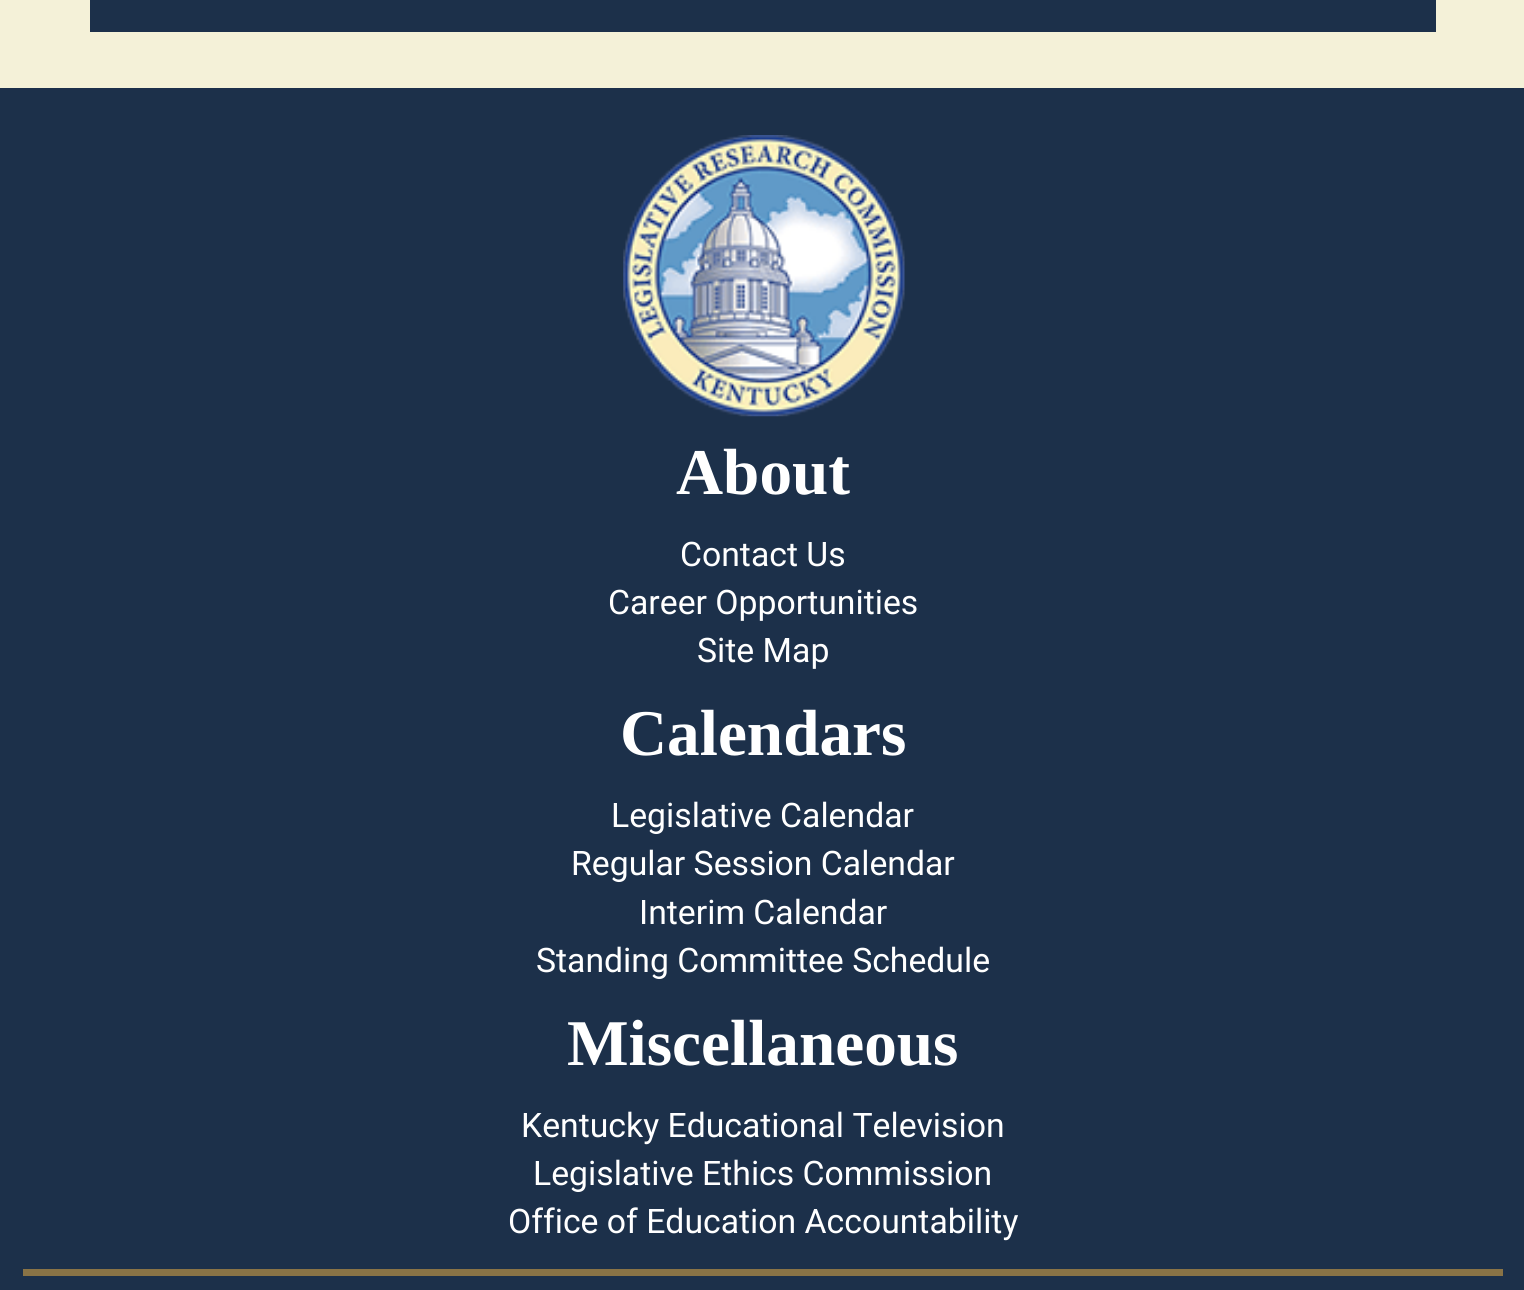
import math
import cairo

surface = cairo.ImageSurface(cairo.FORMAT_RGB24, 1524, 1290)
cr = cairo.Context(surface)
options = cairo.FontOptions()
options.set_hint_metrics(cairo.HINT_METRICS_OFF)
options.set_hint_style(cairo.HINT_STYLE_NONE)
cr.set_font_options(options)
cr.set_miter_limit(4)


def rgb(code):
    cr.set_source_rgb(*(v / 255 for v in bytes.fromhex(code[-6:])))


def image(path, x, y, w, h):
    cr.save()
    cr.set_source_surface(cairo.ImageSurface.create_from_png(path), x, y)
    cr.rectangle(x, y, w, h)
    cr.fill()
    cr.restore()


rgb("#f4f1d8")
cr.paint()
rgb("#1c304a")
cr.rectangle(90, 0, 1346, 32)
cr.fill()
cr.rectangle(0, 88, 1524, 1202)
cr.fill()
image("img/1.png", 623, 135, 282, 282)
rgb("#897346")
cr.rectangle(23, 1269, 1480, 7)
cr.fill()
cr.select_font_face("Liberation Serif", cairo.FONT_SLANT_NORMAL, cairo.FONT_WEIGHT_BOLD)
cr.set_font_size(65.25)
rgb("#ffffff")
cr.move_to(676, 494)
cr.show_text("About")
cr.select_font_face("Roboto")
cr.set_font_size(33.75)
for x, y, s in [
    (680, 566, "Contact Us"),
    (608, 614, "Career Opportunities"),
    (697, 662, "Site Map"),
]:
    cr.move_to(x, y)
    cr.show_text(s)
cr.select_font_face("Liberation Serif", cairo.FONT_SLANT_NORMAL, cairo.FONT_WEIGHT_BOLD)
cr.set_font_size(65.25)
cr.move_to(620, 755)
cr.show_text("Calendars")
cr.select_font_face("Roboto")
cr.set_font_size(33.75)
for x, y, s in [
    (611, 827, "Legislative Calendar"),
    (571, 875, "Regular Session Calendar"),
    (639, 924, "Interim Calendar"),
    (536, 972, "Standing Committee Schedule"),
]:
    cr.move_to(x, y)
    cr.show_text(s)
cr.select_font_face("Liberation Serif", cairo.FONT_SLANT_NORMAL, cairo.FONT_WEIGHT_BOLD)
cr.set_font_size(65.25)
cr.move_to(567, 1065)
cr.show_text("Miscellaneous")
cr.select_font_face("Roboto")
cr.set_font_size(33.75)
for x, y, s in [
    (521, 1137, "Kentucky Educational Television"),
    (533, 1185, "Legislative Ethics Commission"),
    (508, 1233, "Office of Education Accountability"),
]:
    cr.move_to(x, y)
    cr.show_text(s)
surface.write_to_png("page.png")
